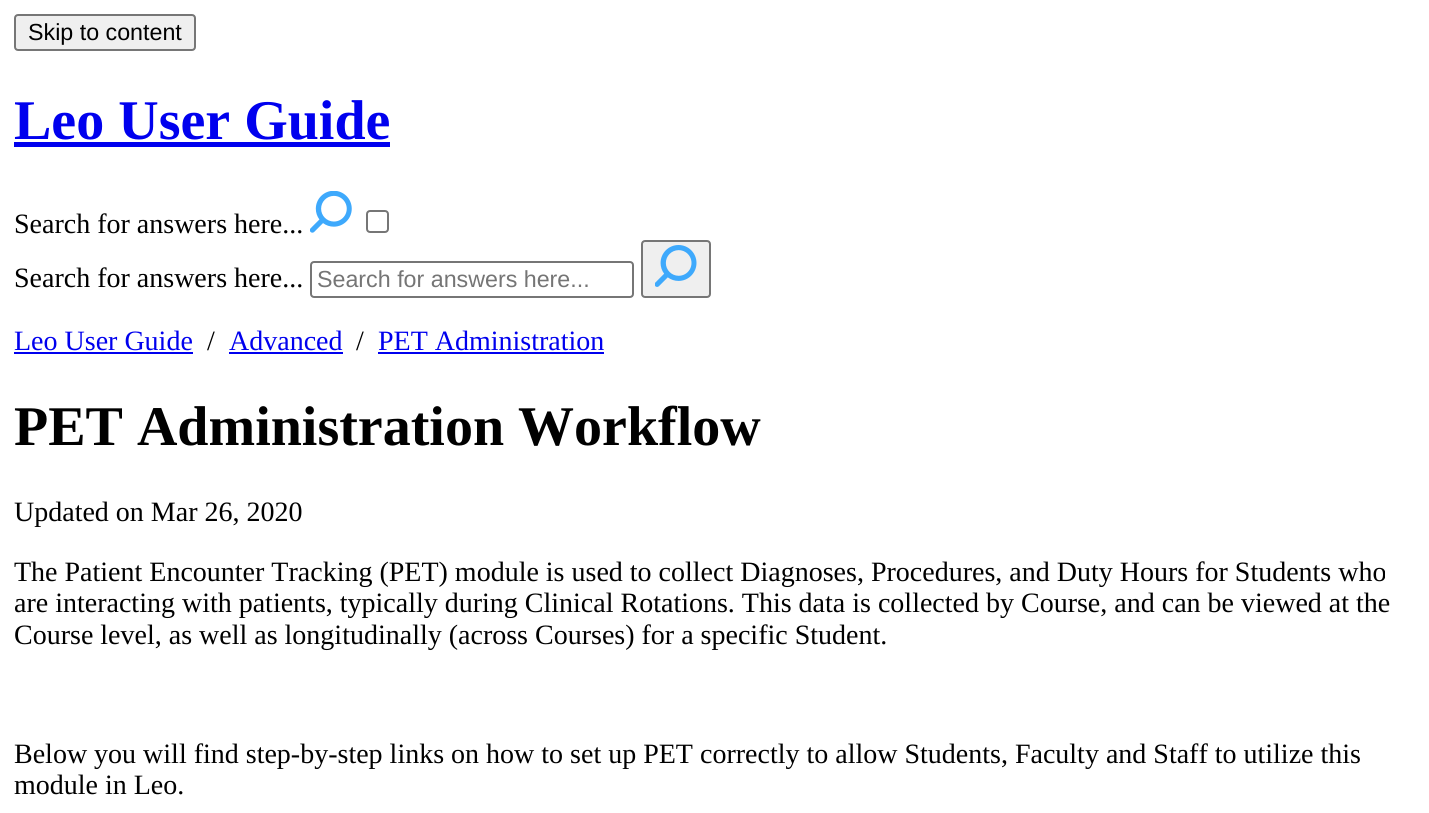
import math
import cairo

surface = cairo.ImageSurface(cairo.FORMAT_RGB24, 1429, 813)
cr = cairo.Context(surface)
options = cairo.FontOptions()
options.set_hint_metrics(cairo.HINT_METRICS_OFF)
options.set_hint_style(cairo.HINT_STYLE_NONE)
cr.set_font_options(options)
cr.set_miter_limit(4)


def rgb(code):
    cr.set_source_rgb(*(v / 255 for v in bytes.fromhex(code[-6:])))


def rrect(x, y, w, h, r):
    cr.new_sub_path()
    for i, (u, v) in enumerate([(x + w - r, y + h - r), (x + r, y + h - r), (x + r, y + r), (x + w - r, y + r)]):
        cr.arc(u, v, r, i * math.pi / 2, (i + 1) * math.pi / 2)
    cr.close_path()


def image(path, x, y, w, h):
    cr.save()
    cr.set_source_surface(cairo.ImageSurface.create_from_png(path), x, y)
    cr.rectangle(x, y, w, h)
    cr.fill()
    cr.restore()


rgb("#ffffff")
cr.paint()
rgb("#efefef")
rrect(15, 15, 180, 35, 3)
cr.fill_preserve()
rgb("#767676")
cr.stroke()
rgb("#0000ee")
cr.rectangle(14, 142, 376, 5)
cr.fill()
image("img/1.png", 310, 191, 42, 42)
rrect(367, 211, 21, 21, 3)
rgb("#767676")
cr.stroke()
rrect(311, 262, 322, 35, 3)
cr.stroke()
rgb("#efefef")
rrect(642, 241, 68, 56, 3)
cr.fill_preserve()
rgb("#767676")
cr.stroke()
image("img/2.png", 655, 245, 42, 42)
for x, y, w, h, color in [
    (14, 352, 179, 2, "#0000ee"),
    (229, 352, 114, 2, "#0000ee"),
    (378, 352, 226, 2, "#0000ee"),
]:
    rgb(color)
    cr.rectangle(x, y, w, h)
    cr.fill()
cr.select_font_face("Liberation Sans")
cr.set_font_size(23.25)
rgb("#000000")
cr.move_to(28, 40)
cr.show_text("Skip to content")
cr.select_font_face("Liberation Serif", cairo.FONT_SLANT_NORMAL, cairo.FONT_WEIGHT_BOLD)
cr.set_font_size(56)
rgb("#0000ee")
cr.move_to(14, 139)
cr.show_text("Leo User Guide")
cr.select_font_face("Liberation Serif")
cr.set_font_size(28)
rgb("#000000")
cr.move_to(14, 233)
cr.show_text("Search for answers here...")
cr.move_to(14, 287)
cr.show_text("Search for answers here...")
cr.select_font_face("Liberation Sans")
cr.set_font_size(23.25)
rgb("#757575")
cr.move_to(317, 287)
cr.show_text("Search for answers here...")
cr.select_font_face("Liberation Serif")
cr.set_font_size(28)
rgb("#0000ee")
cr.move_to(14, 350)
cr.show_text("Leo User Guide")
rgb("#000000")
cr.move_to(207, 350)
cr.show_text("/")
rgb("#0000ee")
cr.move_to(229, 350)
cr.show_text("Advanced")
rgb("#000000")
cr.move_to(356, 350)
cr.show_text("/")
rgb("#0000ee")
cr.move_to(378, 350)
cr.show_text("PET Administration")
cr.select_font_face("Liberation Serif", cairo.FONT_SLANT_NORMAL, cairo.FONT_WEIGHT_BOLD)
cr.set_font_size(56)
rgb("#000000")
cr.move_to(14, 445)
cr.show_text("PET Administration Workflow")
cr.select_font_face("Liberation Serif")
cr.set_font_size(28)
for x, y, s in [
    (14, 521, "Updated on Mar 26, 2020"),
    (14, 581, "The Patient Encounter Tracking (PET) module is used to collect Diagnoses, Procedures, and Duty Hours for Students who"),
    (14, 612, "are interacting with patients, typically during Clinical Rotations. This data is collected by Course, and can be viewed at the"),
    (14, 644, "Course level, as well as longitudinally (across Courses) for a specific Student."),
    (14, 763, "Below you will find step-by-step links on how to set up PET correctly to allow Students, Faculty and Staff to utilize this"),
    (14, 794, "module in Leo."),
]:
    cr.move_to(x, y)
    cr.show_text(s)
surface.write_to_png("page.png")
